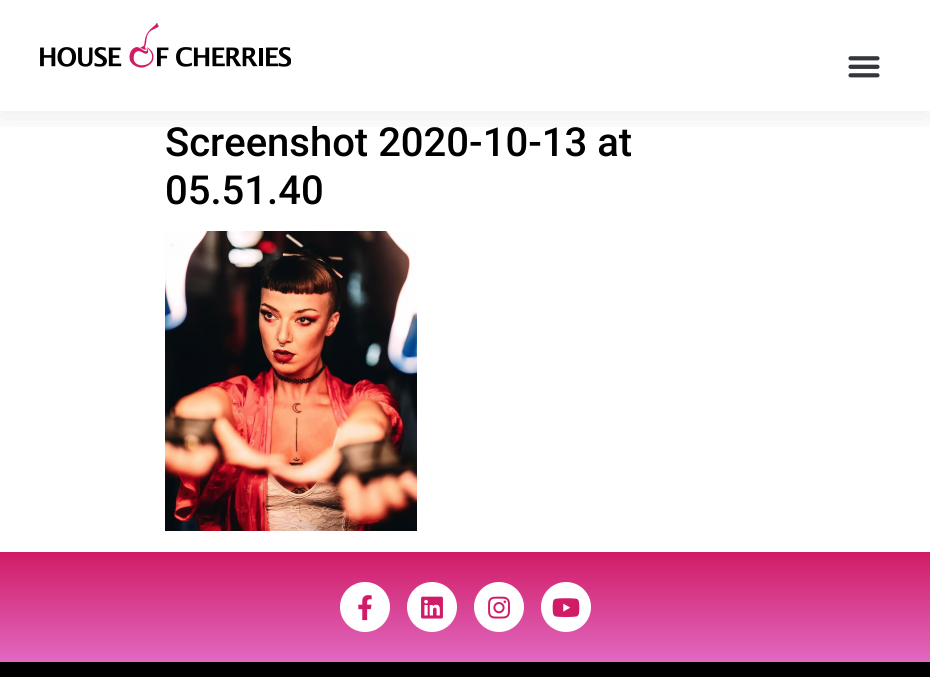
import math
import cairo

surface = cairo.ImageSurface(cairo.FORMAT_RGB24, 930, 677)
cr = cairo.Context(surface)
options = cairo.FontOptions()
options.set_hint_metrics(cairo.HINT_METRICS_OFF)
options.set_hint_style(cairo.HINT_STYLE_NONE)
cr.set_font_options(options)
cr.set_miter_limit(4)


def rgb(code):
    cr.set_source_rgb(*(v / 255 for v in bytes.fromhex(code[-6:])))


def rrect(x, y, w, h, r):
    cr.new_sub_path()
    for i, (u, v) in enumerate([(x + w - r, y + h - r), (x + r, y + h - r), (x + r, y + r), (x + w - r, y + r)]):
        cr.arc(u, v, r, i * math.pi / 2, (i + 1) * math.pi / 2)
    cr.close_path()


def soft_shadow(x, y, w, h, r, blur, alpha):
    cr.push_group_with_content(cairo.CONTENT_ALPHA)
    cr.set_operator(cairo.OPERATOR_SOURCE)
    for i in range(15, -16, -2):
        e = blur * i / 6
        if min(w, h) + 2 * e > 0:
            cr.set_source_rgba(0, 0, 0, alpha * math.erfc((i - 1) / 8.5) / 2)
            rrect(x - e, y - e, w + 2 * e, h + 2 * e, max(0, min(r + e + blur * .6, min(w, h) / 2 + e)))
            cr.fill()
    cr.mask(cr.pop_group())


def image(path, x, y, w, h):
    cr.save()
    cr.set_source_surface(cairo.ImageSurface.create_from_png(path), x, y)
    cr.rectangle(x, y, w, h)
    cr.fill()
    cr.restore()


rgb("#ffffff")
cr.paint()
cr.save()
cr.rectangle(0, 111, 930, 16)
cr.clip()
rgb("#000000")
soft_shadow(0, 0, 930, 111, 0, 19, 0.1)
cr.restore()
image("img/1.png", 40, 23, 251, 45)
image("img/2.png", 848, 56, 32, 22)
image("img/3.png", 165, 231, 252, 300)
gradient = cairo.LinearGradient(465, 552, 465, 662)
gradient.add_color_stop_rgba(0, 0.82, 0.106, 0.4, 1)
gradient.add_color_stop_rgba(1, 0.878, 0.412, 0.753, 1)
cr.set_source(gradient)
cr.rectangle(0, 552, 930, 110)
cr.fill()
rgb("#ffffff")
cr.arc(365, 607, 25, 0, 2 * math.pi)
cr.fill()
image("img/4.png", 358, 595, 14, 26)
cr.arc(432, 607, 25, 0, 2 * math.pi)
cr.fill()
image("img/5.png", 421, 596, 22, 23)
cr.arc(499, 607, 25, 0, 2 * math.pi)
cr.fill()
image("img/6.png", 488, 596, 22, 23)
cr.arc(566, 607, 25, 0, 2 * math.pi)
cr.fill()
image("img/7.png", 552, 598, 28, 19)
rgb("#000000")
cr.rectangle(0, 662, 930, 15)
cr.fill()
cr.select_font_face("Roboto Medium")
cr.set_font_size(40)
cr.move_to(165, 156)
cr.show_text("Screenshot 2020-10-13 at")
cr.move_to(165, 204)
cr.show_text("05.51.40")
surface.write_to_png("page.png")
